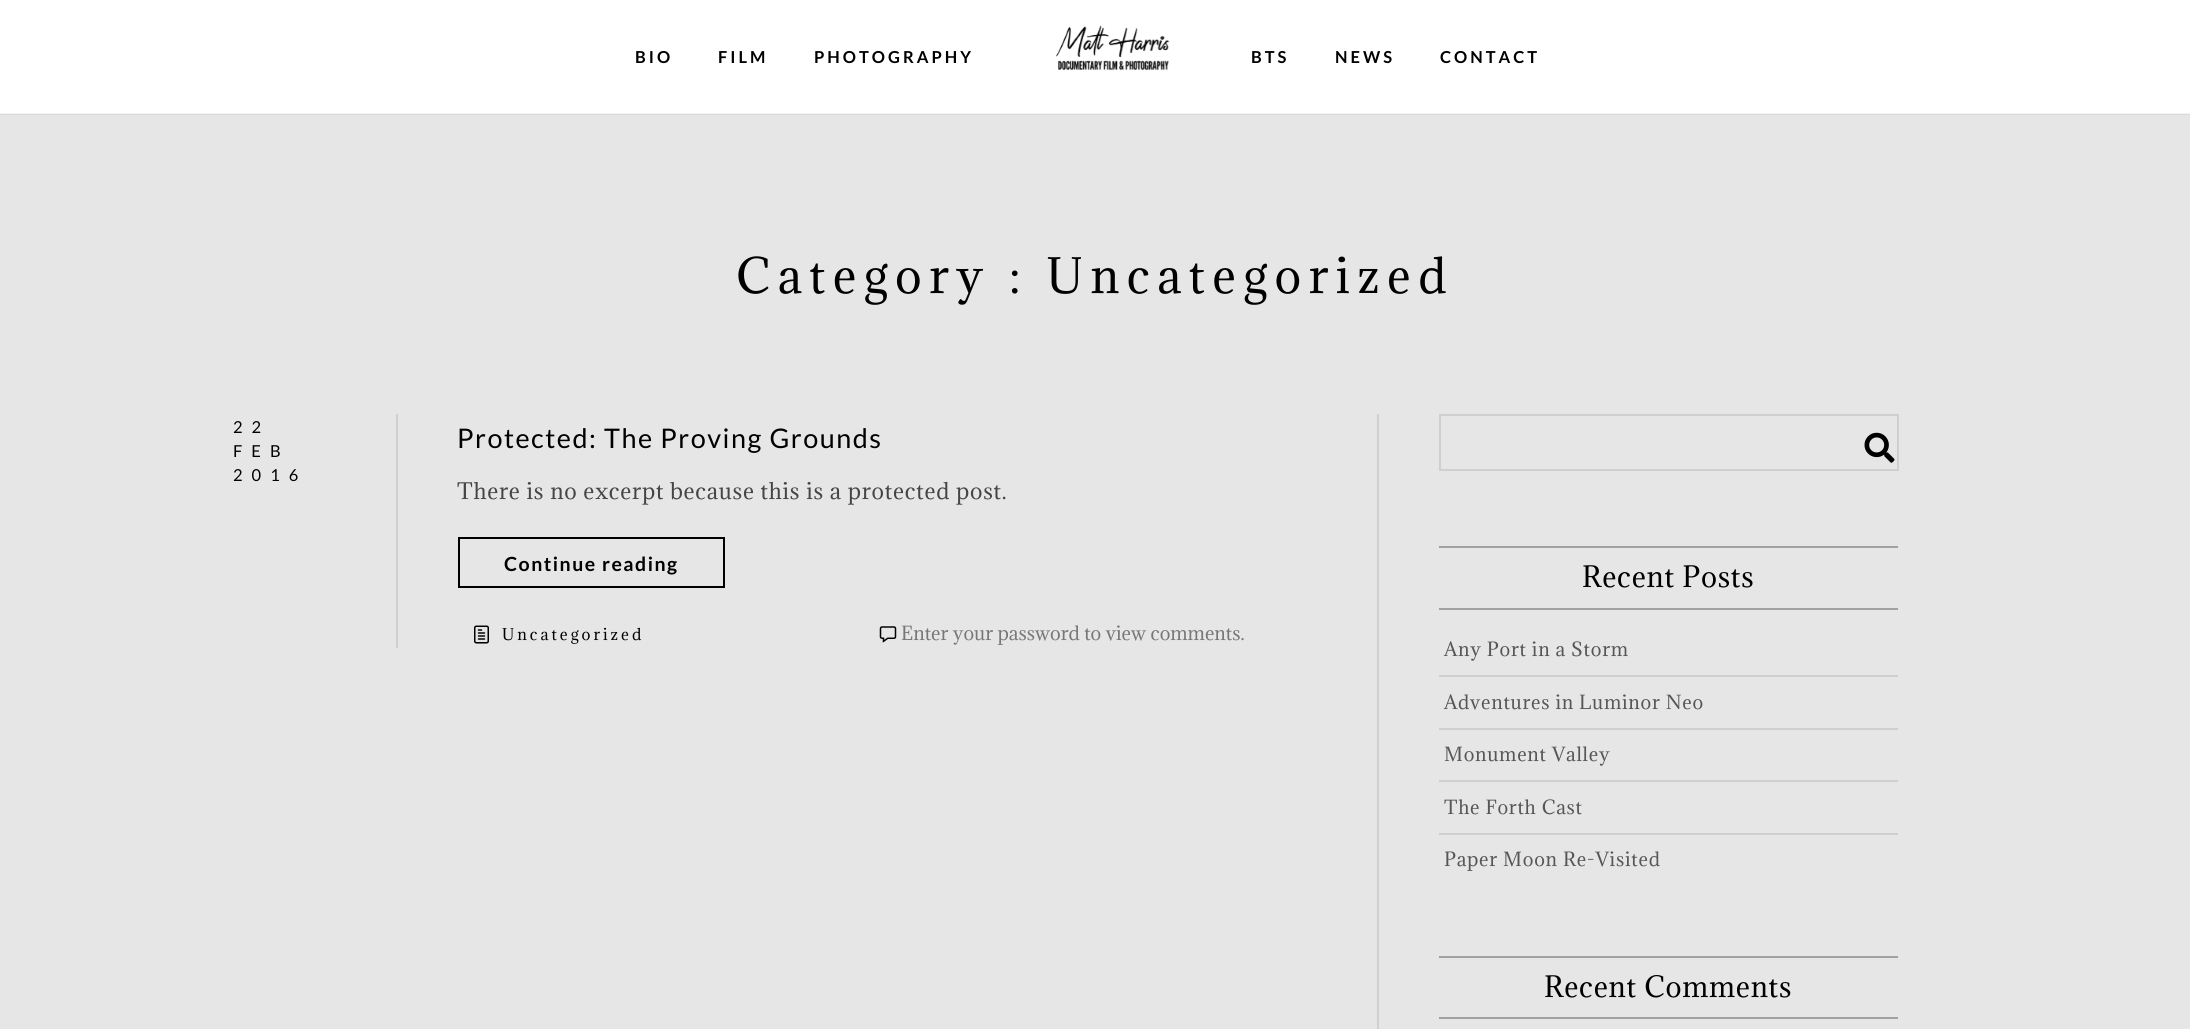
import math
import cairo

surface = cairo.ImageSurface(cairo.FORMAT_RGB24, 2190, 1029)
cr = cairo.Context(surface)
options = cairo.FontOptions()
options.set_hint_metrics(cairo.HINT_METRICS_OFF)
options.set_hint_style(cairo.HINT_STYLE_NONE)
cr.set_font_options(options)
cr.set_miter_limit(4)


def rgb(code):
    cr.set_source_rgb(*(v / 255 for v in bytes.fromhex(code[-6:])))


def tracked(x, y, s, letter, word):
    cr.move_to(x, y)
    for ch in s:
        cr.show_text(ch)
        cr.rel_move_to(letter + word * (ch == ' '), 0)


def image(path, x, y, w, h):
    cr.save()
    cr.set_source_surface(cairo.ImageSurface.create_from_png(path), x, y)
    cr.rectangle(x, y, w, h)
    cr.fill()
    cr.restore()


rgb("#e6e6e6")
cr.paint()
rgb("#ffffff")
cr.rectangle(0, 0, 2190, 113)
cr.fill()
rgb("#f2f2f2")
cr.rectangle(0, 113, 2190, 1)
cr.fill()
image("img/1.png", 1055, 25, 115, 46)
rgb("#dbdbdb")
cr.rectangle(0, 114, 2190, 1)
cr.fill()
rgb("#d0d0d0")
cr.rectangle(396, 414, 2, 234)
cr.fill()
cr.rectangle(459, 538, 265, 49)
rgb("#000000")
cr.stroke()
image("img/2.png", 474, 625, 15, 19)
image("img/3.png", 879, 626, 18, 17)
rgb("#d0d0d0")
cr.rectangle(1377, 414, 2, 615)
cr.fill()
cr.rectangle(1440, 415, 458, 55)
rgb("#cfcfcf")
cr.stroke()
image("img/4.png", 1864, 432, 31, 31)
for x, y, w, h, color in [
    (1439, 546, 459, 2, "#a1a1a1"),
    (1439, 608, 459, 2, "#a1a1a1"),
    (1439, 675, 459, 2, "#cfcfcf"),
    (1439, 728, 459, 2, "#cfcfcf"),
    (1439, 780, 459, 2, "#cfcfcf"),
    (1439, 833, 459, 2, "#cfcfcf"),
    (1439, 956, 459, 2, "#a1a1a1"),
    (1439, 1017, 459, 2, "#a1a1a1"),
]:
    rgb(color)
    cr.rectangle(x, y, w, h)
    cr.fill()
cr.select_font_face("Lato", cairo.FONT_SLANT_NORMAL, cairo.FONT_WEIGHT_BOLD)
cr.set_font_size(16.5)
rgb("#000000")
for x, y, s in [
    (635, 63, "BIO"),
    (718, 63, "FILM"),
    (814, 63, "PHOTOGRAPHY"),
    (1251, 63, "BTS"),
    (1335, 63, "NEWS"),
    (1440, 63, "CONTACT"),
]:
    tracked(x, y, s, 3, 0)
cr.select_font_face("Adamina")
cr.set_font_size(45)
tracked(736, 293, "Category : Uncategorized", 7.5, 0)
cr.select_font_face("Lato")
cr.set_font_size(16.5)
for x, y, s in [
    (233, 433, "22"),
    (233, 457, "FEB"),
    (233, 481, "2016"),
]:
    tracked(x, y, s, 9, 0)
cr.set_font_size(27)
tracked(457, 448, "Protected: The Proving Grounds", 1.5, 0)
cr.select_font_face("Adamina")
cr.set_font_size(21)
rgb("#454545")
tracked(457, 499, "There is no excerpt because this is a protected post.", 0.75, 0)
cr.select_font_face("Lato", cairo.FONT_SLANT_NORMAL, cairo.FONT_WEIGHT_BOLD)
cr.set_font_size(19.5)
rgb("#000000")
tracked(504, 571, "Continue reading", 1.5, 0)
cr.select_font_face("Adamina")
cr.set_font_size(15)
tracked(502, 640, "Uncategorized", 3, 0)
cr.set_font_size(18)
rgb("#777777")
cr.move_to(901, 640)
cr.show_text("Enter your password to view comments.")
cr.set_font_size(27)
rgb("#000000")
tracked(1582, 587, "Recent Posts", 0.75, 0)
cr.set_font_size(18)
rgb("#565656")
for x, y, s in [
    (1444, 656, "Any Port in a Storm"),
    (1444, 709, "Adventures in Luminor Neo"),
    (1444, 761, "Monument Valley"),
    (1444, 814, "The Forth Cast"),
    (1444, 866, "Paper Moon Re-Visited"),
]:
    tracked(x, y, s, 0.75, 0)
cr.set_font_size(27)
rgb("#000000")
tracked(1544, 997, "Recent Comments", 0.75, 0)
surface.write_to_png("page.png")
